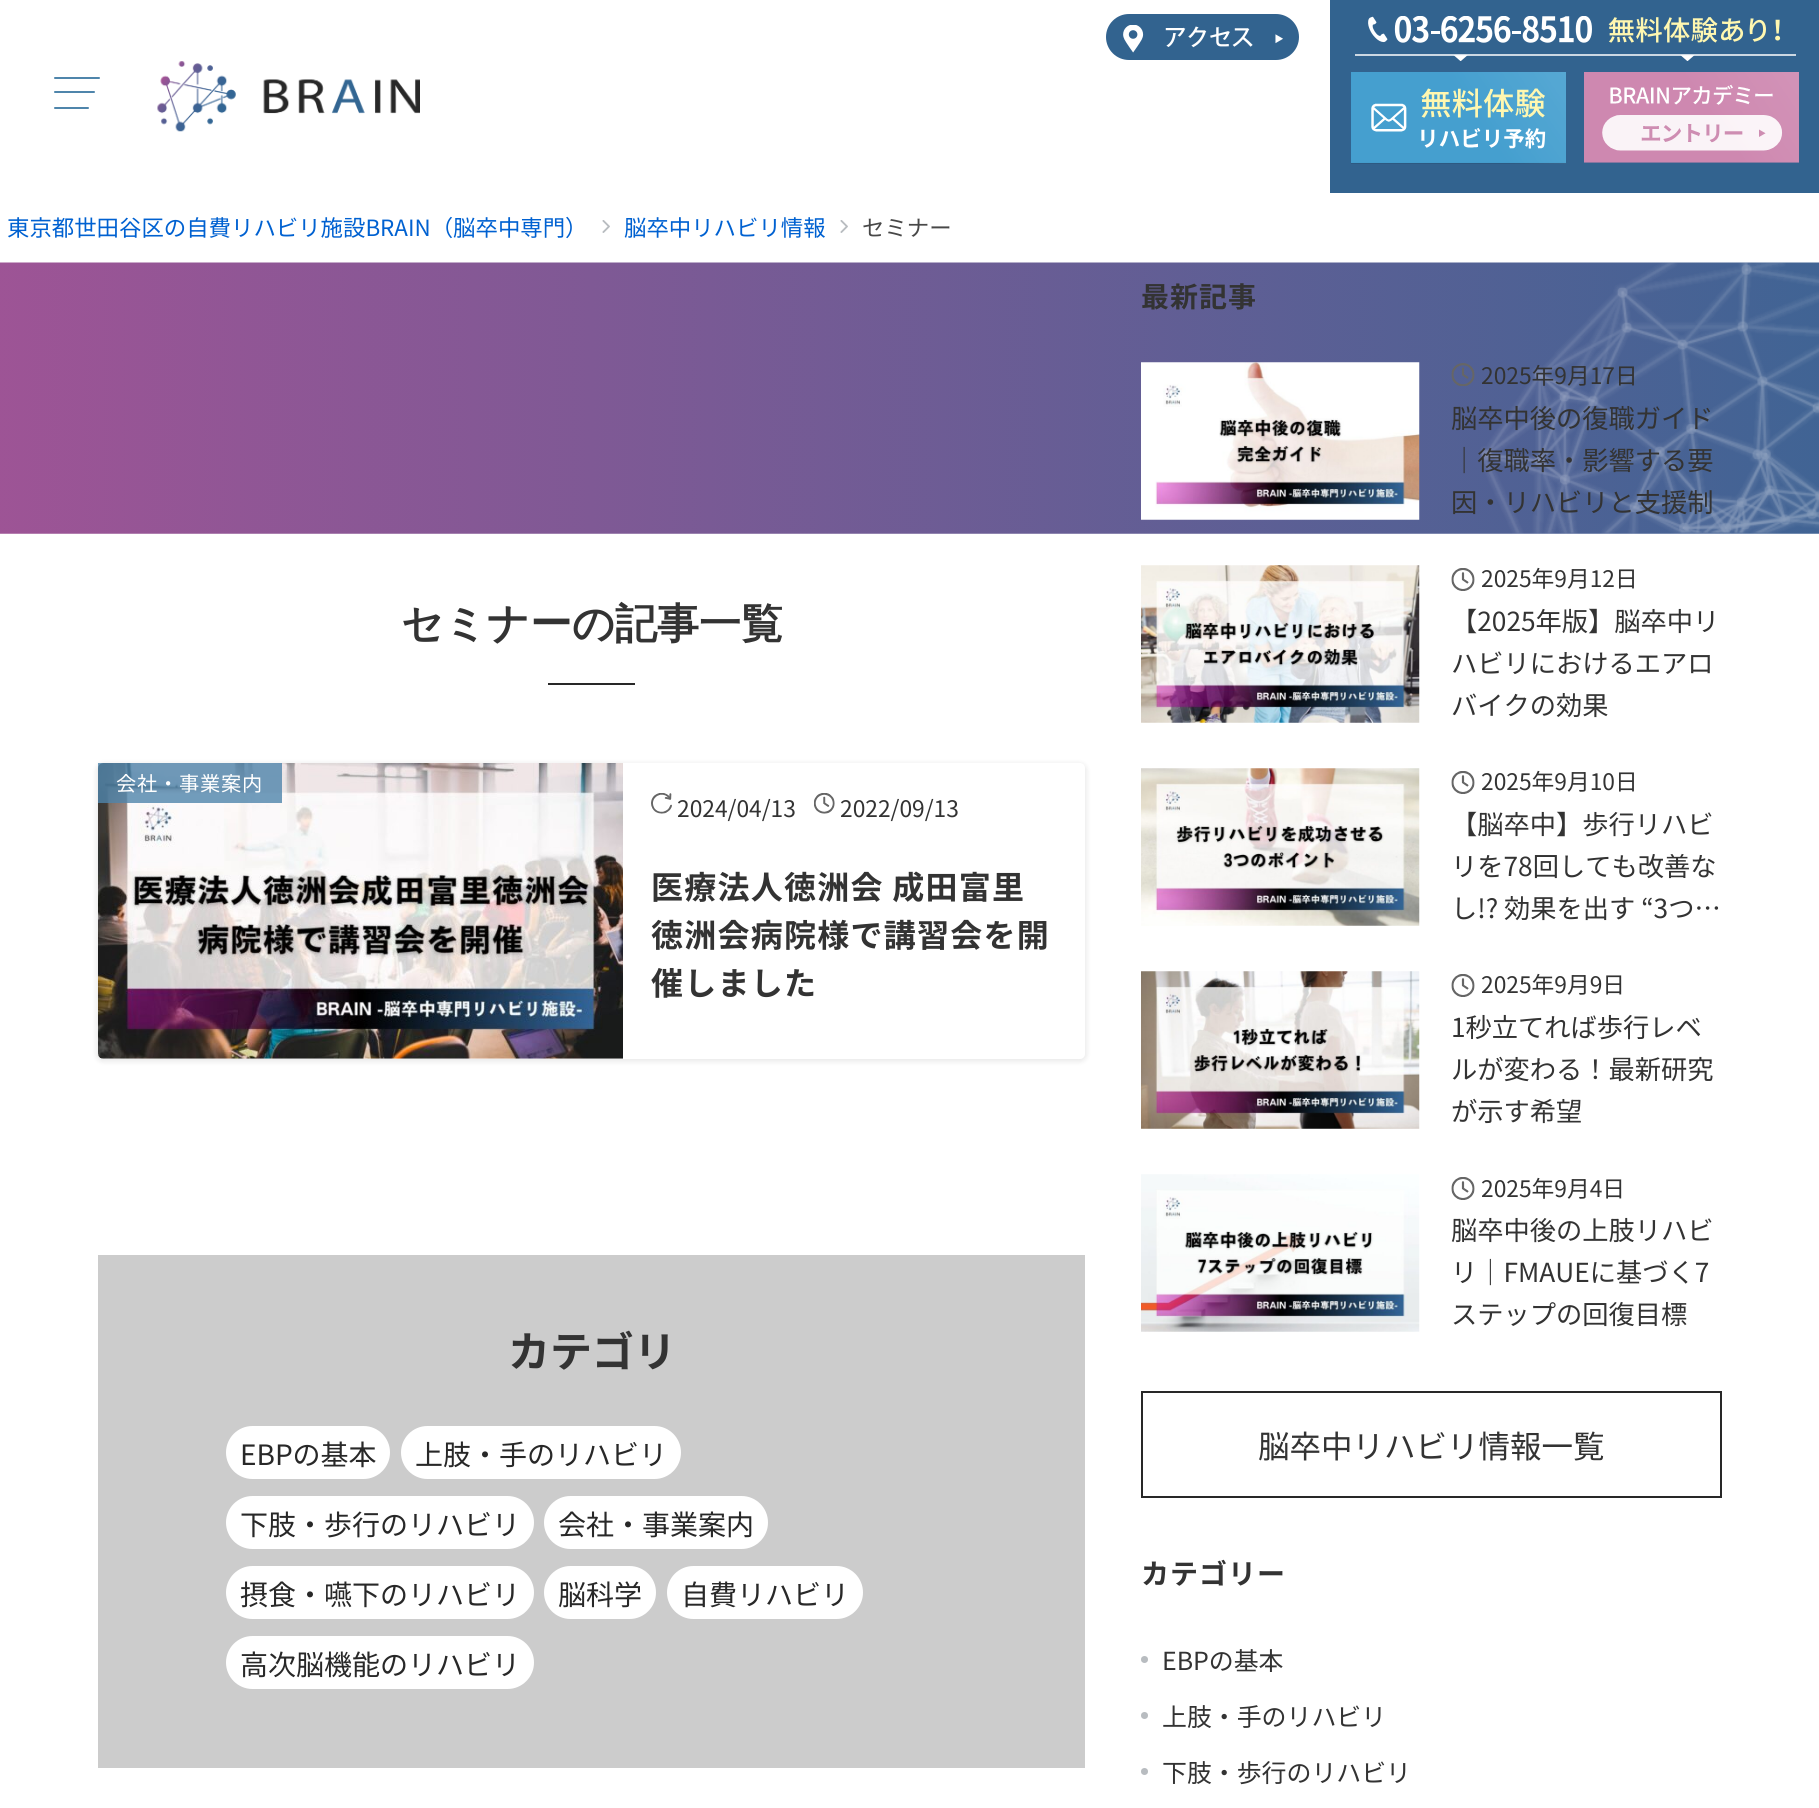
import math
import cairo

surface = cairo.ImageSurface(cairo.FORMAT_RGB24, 1819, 1808)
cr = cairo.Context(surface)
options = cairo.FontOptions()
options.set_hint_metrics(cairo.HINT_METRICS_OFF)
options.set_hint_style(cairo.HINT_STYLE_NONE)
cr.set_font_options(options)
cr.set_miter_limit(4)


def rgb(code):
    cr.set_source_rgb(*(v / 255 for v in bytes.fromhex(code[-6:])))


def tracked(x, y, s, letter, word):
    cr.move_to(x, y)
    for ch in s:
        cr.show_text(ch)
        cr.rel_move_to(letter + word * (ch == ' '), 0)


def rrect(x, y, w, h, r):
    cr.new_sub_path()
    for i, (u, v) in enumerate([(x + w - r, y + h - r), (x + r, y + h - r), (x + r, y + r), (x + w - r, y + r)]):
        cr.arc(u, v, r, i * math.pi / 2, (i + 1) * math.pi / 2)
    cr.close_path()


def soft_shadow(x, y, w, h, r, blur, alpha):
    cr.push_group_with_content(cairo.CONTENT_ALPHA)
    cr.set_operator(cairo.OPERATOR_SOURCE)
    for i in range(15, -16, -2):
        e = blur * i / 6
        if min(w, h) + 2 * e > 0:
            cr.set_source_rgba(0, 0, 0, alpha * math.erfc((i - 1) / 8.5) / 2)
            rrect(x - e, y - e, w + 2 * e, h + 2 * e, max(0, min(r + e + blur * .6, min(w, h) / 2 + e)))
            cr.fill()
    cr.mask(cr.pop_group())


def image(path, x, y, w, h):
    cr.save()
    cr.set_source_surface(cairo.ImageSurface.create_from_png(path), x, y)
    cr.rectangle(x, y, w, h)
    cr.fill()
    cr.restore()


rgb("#ffffff")
cr.paint()
rgb("#4f85ab")
rrect(54, 77, 46, 2, 1)
cr.fill()
rrect(54, 91, 41, 2, 1)
cr.fill()
rrect(54, 107, 35, 2, 1)
cr.fill()
image("img/1.png", 157, 61, 263, 71)
rgb("#32638f")
cr.rectangle(1330, 0, 489, 193)
cr.fill()
rrect(1106, 14, 193, 46, 23)
cr.fill()
image("img/2.png", 1123, 25, 160, 28)
image("img/3.png", 1355, 16, 441, 45)
image("img/4.png", 1351, 72, 215, 92)
image("img/5.png", 1584, 72, 215, 91)
image("img/6.png", 602, 220, 8, 13)
image("img/6.png", 840, 220, 8, 13)
image("img/7.png", 0, 262, 1819, 272)
rgb("#282828")
cr.rectangle(548, 683, 87, 2)
cr.fill()
rgb("#000000")
soft_shadow(96, 763, 991, 299, 7, 2.5, 0.08)
rgb("#ffffff")
rrect(98, 763, 987, 296, 5)
cr.fill()
image("img/8.png", 98, 763, 525, 296)
cr.set_source_rgba(0.31, 0.522, 0.671, 0.8)
cr.rectangle(98, 763, 184, 40)
cr.fill()
image("img/9.png", 651, 793, 21, 21)
image("img/10.png", 814, 793, 21, 21)
rgb("#cccccc")
cr.rectangle(98, 1255, 987, 513)
cr.fill()
rgb("#ffffff")
rrect(226, 1426, 164, 53, 26.5)
cr.fill()
rrect(401, 1426, 280, 53, 26.5)
cr.fill()
rrect(226, 1496, 308, 53, 26.5)
cr.fill()
rrect(544, 1496, 224, 53, 26.5)
cr.fill()
rrect(226, 1566, 308, 53, 26.5)
cr.fill()
rrect(544, 1566, 112, 53, 26.5)
cr.fill()
rrect(667, 1566, 196, 53, 26.5)
cr.fill()
rrect(226, 1636, 308, 53, 26.5)
cr.fill()
image("img/11.png", 1451, 363, 24, 23)
image("img/12.png", 1141, 362, 279, 158)
image("img/13.png", 1451, 568, 24, 23)
image("img/14.png", 1141, 565, 279, 158)
image("img/13.png", 1451, 771, 24, 23)
image("img/15.png", 1141, 768, 279, 158)
image("img/13.png", 1451, 974, 24, 23)
image("img/16.png", 1141, 971, 279, 158)
image("img/13.png", 1451, 1177, 24, 23)
image("img/17.png", 1141, 1174, 279, 158)
cr.rectangle(1142, 1392, 579, 105)
rgb("#282828")
cr.stroke()
rgb("#b8bcc0")
cr.arc(1144.5, 1659.5, 3.5, 0, 2 * math.pi)
cr.fill()
cr.arc(1144.5, 1715.5, 3.5, 0, 2 * math.pi)
cr.fill()
cr.arc(1144.5, 1771.5, 3.5, 0, 2 * math.pi)
cr.fill()
cr.select_font_face("Noto Sans JP")
cr.set_font_size(22.4)
rgb("#0061d1")
cr.move_to(7, 236)
cr.show_text("東京都世田谷区の自費リハビリ施設BRAIN（脳卒中専門）")
cr.move_to(624, 236)
cr.show_text("脳卒中リハビリ情報")
rgb("#484848")
cr.move_to(862, 236)
cr.show_text("セミナー")
cr.select_font_face("WenQuanYi Zen Hei", cairo.FONT_SLANT_NORMAL, cairo.FONT_WEIGHT_BOLD)
cr.set_font_size(42)
rgb("#333333")
cr.move_to(401, 638)
cr.show_text("セミナーの記事一覧")
cr.select_font_face("Noto Sans JP")
cr.set_font_size(20.25)
rgb("#ffffff")
tracked(116, 791, "会社・事業案内", 0.75, 0)
cr.set_font_size(22.75)
rgb("#333333")
cr.move_to(677, 817)
cr.show_text("2024/04/13")
cr.move_to(840, 817)
cr.show_text("2022/09/13")
cr.select_font_face("Noto Sans JP", cairo.FONT_SLANT_NORMAL, cairo.FONT_WEIGHT_BOLD)
cr.set_font_size(32)
for x, y, s in [
    (651, 899, "医療法人徳洲会 成田富里"),
    (651, 947, "徳洲会病院様で講習会を開"),
    (651, 995, "催しました"),
]:
    tracked(x, y, s, 1.25, 0)
cr.set_font_size(42)
cr.move_to(508, 1367)
cr.show_text("カテゴリ")
cr.select_font_face("Noto Sans JP")
cr.set_font_size(28)
rgb("#282828")
for x, y, s in [
    (240, 1465, "EBPの基本"),
    (415, 1465, "上肢・手のリハビリ"),
    (240, 1535, "下肢・歩行のリハビリ"),
    (558, 1535, "会社・事業案内"),
    (240, 1605, "摂食・嚥下のリハビリ"),
    (558, 1605, "脳科学"),
    (681, 1605, "自費リハビリ"),
    (240, 1675, "高次脳機能のリハビリ"),
]:
    cr.move_to(x, y)
    cr.show_text(s)
cr.select_font_face("Noto Sans JP", cairo.FONT_SLANT_NORMAL, cairo.FONT_WEIGHT_BOLD)
rgb("#333333")
tracked(1141, 307, "最新記事", 1, 0)
cr.select_font_face("Noto Sans JP")
cr.set_font_size(22.75)
cr.move_to(1481, 384)
cr.show_text("2025年9月17日")
cr.set_font_size(26.25)
for x, y, s in [
    (1451, 428, "脳卒中後の復職ガイド"),
    (1451, 470, "｜復職率・影響する要"),
    (1451, 512, "因・リハビリと支援制"),
]:
    cr.move_to(x, y)
    cr.show_text(s)
cr.set_font_size(22.75)
cr.move_to(1481, 587)
cr.show_text("2025年9月12日")
cr.set_font_size(26.25)
for x, y, s in [
    (1451, 631, "【2025年版】脳卒中リ"),
    (1451, 673, "ハビリにおけるエアロ"),
    (1451, 715, "バイクの効果"),
]:
    cr.move_to(x, y)
    cr.show_text(s)
cr.set_font_size(22.75)
cr.move_to(1481, 790)
cr.show_text("2025年9月10日")
cr.set_font_size(26.25)
for x, y, s in [
    (1451, 834, "【脳卒中】歩行リハビ"),
    (1451, 876, "リを78回しても改善な"),
    (1451, 918, "し!? 効果を出す “3つ…"),
]:
    cr.move_to(x, y)
    cr.show_text(s)
cr.set_font_size(22.75)
cr.move_to(1481, 993)
cr.show_text("2025年9月9日")
cr.set_font_size(26.25)
for x, y, s in [
    (1451, 1037, "1秒立てれば歩行レベ"),
    (1451, 1079, "ルが変わる！最新研究"),
    (1451, 1121, "が示す希望"),
]:
    cr.move_to(x, y)
    cr.show_text(s)
cr.set_font_size(22.75)
cr.move_to(1481, 1197)
cr.show_text("2025年9月4日")
cr.set_font_size(26.25)
for x, y, s in [
    (1451, 1240, "脳卒中後の上肢リハビ"),
    (1451, 1282, "リ｜FMAUEに基づく7"),
    (1451, 1324, "ステップの回復目標"),
]:
    cr.move_to(x, y)
    cr.show_text(s)
cr.set_font_size(31.5)
cr.move_to(1258, 1458)
cr.show_text("脳卒中リハビリ情報一覧")
cr.select_font_face("Noto Sans JP", cairo.FONT_SLANT_NORMAL, cairo.FONT_WEIGHT_BOLD)
cr.set_font_size(28)
tracked(1141, 1584, "カテゴリー", 1, 0)
cr.select_font_face("Noto Sans JP")
cr.set_font_size(24.9)
for x, y, s in [
    (1162, 1670, "EBPの基本"),
    (1162, 1726, "上肢・手のリハビリ"),
    (1162, 1782, "下肢・歩行のリハビリ"),
]:
    cr.move_to(x, y)
    cr.show_text(s)
surface.write_to_png("page.png")
